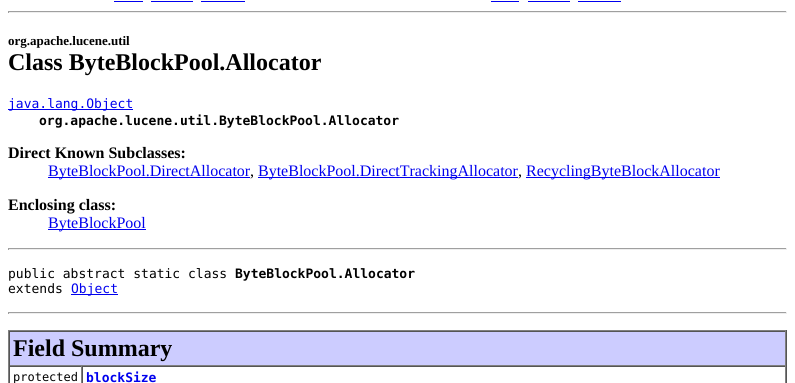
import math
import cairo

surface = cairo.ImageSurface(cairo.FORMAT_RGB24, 795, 383)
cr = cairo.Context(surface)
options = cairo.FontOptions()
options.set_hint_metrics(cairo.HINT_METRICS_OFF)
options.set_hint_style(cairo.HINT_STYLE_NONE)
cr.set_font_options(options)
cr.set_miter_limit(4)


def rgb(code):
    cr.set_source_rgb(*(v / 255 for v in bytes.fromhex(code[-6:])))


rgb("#ffffff")
cr.paint()
for x, y, w, h, color in [
    (114, 1, 29, 1, "#0000ee"),
    (151, 1, 42, 1, "#0000ee"),
    (201, 1, 44, 1, "#0000ee"),
    (491, 1, 28, 1, "#0000ee"),
    (528, 1, 42, 1, "#0000ee"),
    (578, 1, 43, 1, "#0000ee"),
    (8, 11, 779, 1, "#9f9f9f"),
    (786, 11, 1, 2, "#eeeeee"),
    (8, 12, 779, 1, "#eeeeee"),
    (8, 11, 1, 2, "#9f9f9f"),
    (8, 109, 125, 1, "#0000ee"),
    (48, 177, 202, 1, "#0000ee"),
    (258, 177, 260, 1, "#0000ee"),
    (526, 177, 194, 1, "#0000ee"),
    (48, 229, 98, 1, "#0000ee"),
    (8, 248, 779, 1, "#9f9f9f"),
    (786, 248, 1, 2, "#eeeeee"),
    (8, 249, 779, 1, "#eeeeee"),
    (8, 248, 1, 2, "#9f9f9f"),
    (71, 294, 47, 1, "#0000ee"),
    (8, 312, 779, 1, "#9f9f9f"),
    (786, 312, 1, 2, "#eeeeee"),
    (8, 313, 779, 1, "#eeeeee"),
    (8, 312, 1, 2, "#9f9f9f"),
    (8, 330, 779, 1, "#808080"),
    (786, 330, 1, 53, "#555555"),
    (8, 330, 1, 53, "#808080"),
    (10, 332, 775, 33, "#ccccff"),
    (9, 331, 777, 1, "#555555"),
    (785, 331, 1, 35, "#808080"),
    (9, 365, 777, 1, "#808080"),
    (9, 331, 1, 35, "#555555"),
    (9, 366, 777, 1, "#555555"),
    (81, 366, 1, 17, "#808080"),
    (9, 366, 1, 17, "#555555"),
    (785, 366, 1, 17, "#808080"),
    (82, 366, 1, 17, "#555555"),
]:
    rgb(color)
    cr.rectangle(x, y, w, h)
    cr.fill()
cr.select_font_face("Liberation Serif", cairo.FONT_SLANT_NORMAL, cairo.FONT_WEIGHT_BOLD)
cr.set_font_size(13)
rgb("#000000")
cr.move_to(8, 45)
cr.show_text("org.apache.lucene.util")
cr.set_font_size(24)
cr.move_to(8, 70)
cr.show_text("Class ByteBlockPool.Allocator")
cr.select_font_face("DejaVu Sans Mono")
cr.set_font_size(13)
rgb("#0000ee")
cr.move_to(8, 108)
cr.show_text("java.lang.Object")
cr.select_font_face("DejaVu Sans Mono", cairo.FONT_SLANT_NORMAL, cairo.FONT_WEIGHT_BOLD)
rgb("#000000")
cr.move_to(39, 125)
cr.show_text("org.apache.lucene.util.ByteBlockPool.Allocator")
cr.select_font_face("Liberation Serif", cairo.FONT_SLANT_NORMAL, cairo.FONT_WEIGHT_BOLD)
cr.set_font_size(16)
cr.move_to(8, 158)
cr.show_text("Direct Known Subclasses:")
cr.select_font_face("Liberation Serif")
rgb("#0000ee")
cr.move_to(48, 176)
cr.show_text("ByteBlockPool.DirectAllocator")
rgb("#000000")
cr.move_to(250, 176)
cr.show_text(",")
rgb("#0000ee")
cr.move_to(258, 176)
cr.show_text("ByteBlockPool.DirectTrackingAllocator")
rgb("#000000")
cr.move_to(518, 176)
cr.show_text(",")
rgb("#0000ee")
cr.move_to(526, 176)
cr.show_text("RecyclingByteBlockAllocator")
cr.select_font_face("Liberation Serif", cairo.FONT_SLANT_NORMAL, cairo.FONT_WEIGHT_BOLD)
rgb("#000000")
cr.move_to(8, 210)
cr.show_text("Enclosing class:")
cr.select_font_face("Liberation Serif")
rgb("#0000ee")
cr.move_to(48, 228)
cr.show_text("ByteBlockPool")
cr.select_font_face("DejaVu Sans Mono")
cr.set_font_size(13)
rgb("#000000")
cr.move_to(8, 278)
cr.show_text("public abstract static class")
cr.select_font_face("DejaVu Sans Mono", cairo.FONT_SLANT_NORMAL, cairo.FONT_WEIGHT_BOLD)
cr.move_to(235, 278)
cr.show_text("ByteBlockPool.Allocator")
cr.select_font_face("DejaVu Sans Mono")
cr.move_to(8, 293)
cr.show_text("extends")
rgb("#0000ee")
cr.move_to(71, 293)
cr.show_text("Object")
cr.select_font_face("Liberation Serif", cairo.FONT_SLANT_NORMAL, cairo.FONT_WEIGHT_BOLD)
cr.set_font_size(24)
rgb("#000000")
cr.move_to(13, 356)
cr.show_text("Field Summary")
cr.select_font_face("DejaVu Sans Mono")
cr.set_font_size(12)
cr.move_to(13, 381)
cr.show_text("protected")
cr.select_font_face("DejaVu Sans Mono", cairo.FONT_SLANT_NORMAL, cairo.FONT_WEIGHT_BOLD)
cr.set_font_size(13)
rgb("#0000ee")
cr.move_to(86, 382)
cr.show_text("blockSize")
surface.write_to_png("page.png")
